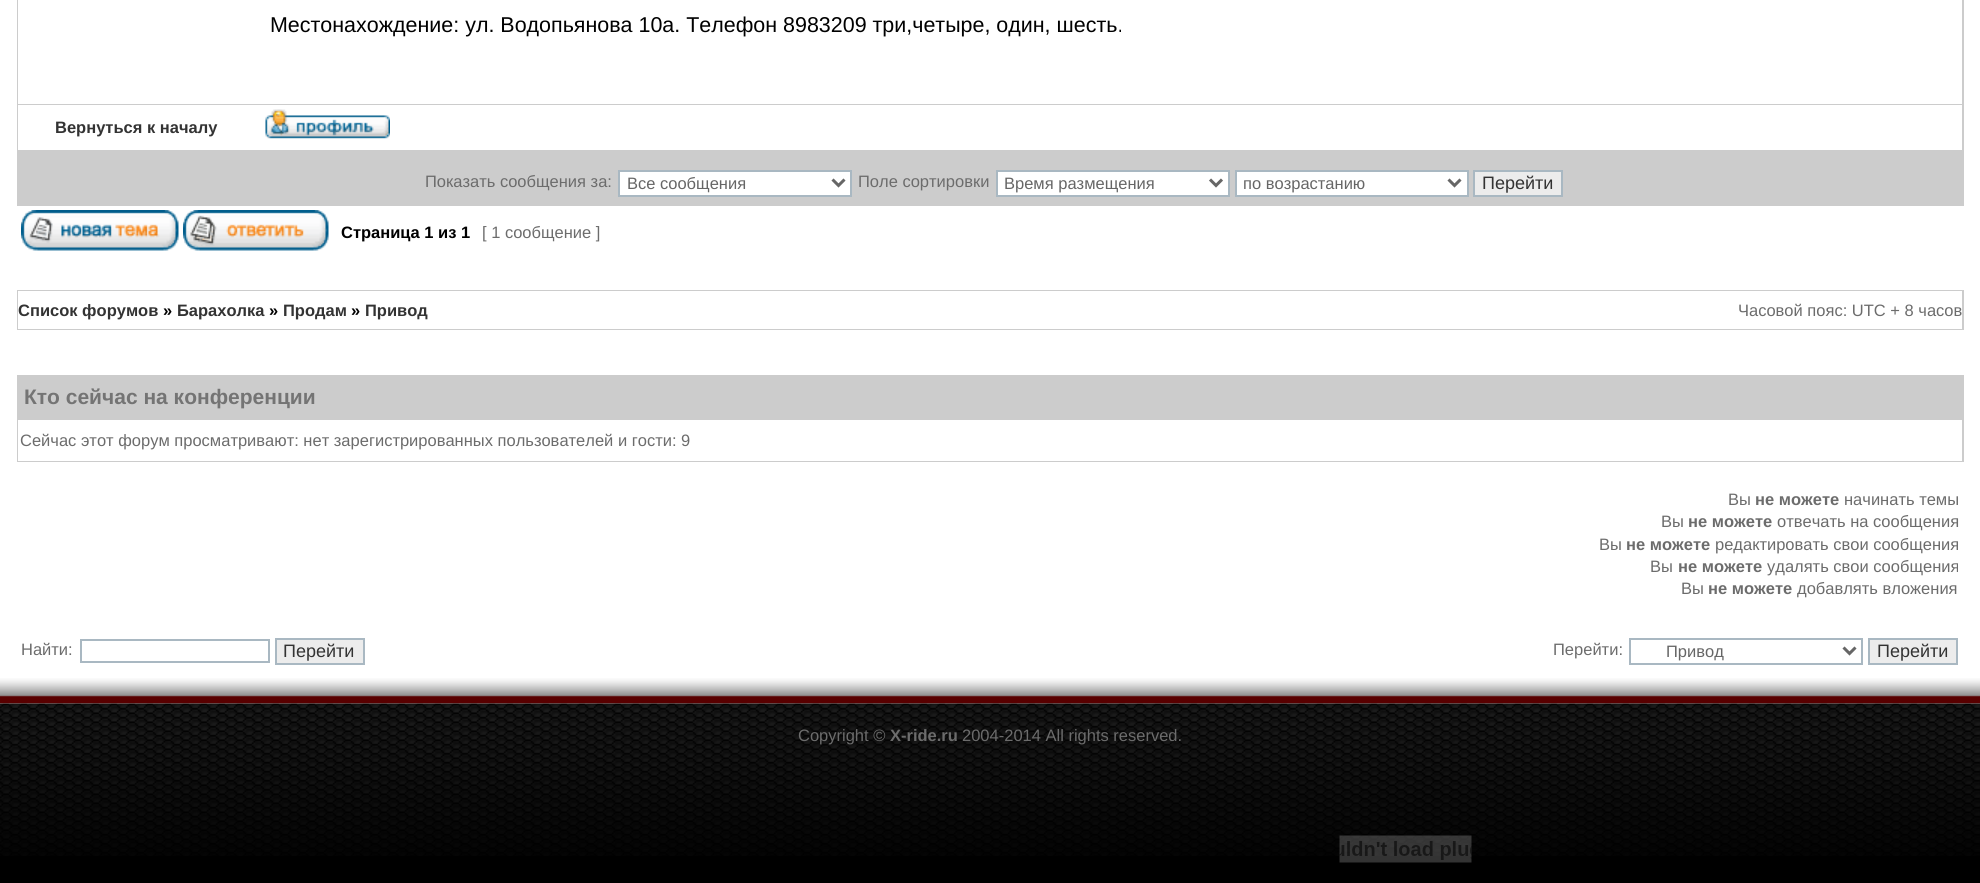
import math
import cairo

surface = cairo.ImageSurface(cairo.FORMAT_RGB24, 1980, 883)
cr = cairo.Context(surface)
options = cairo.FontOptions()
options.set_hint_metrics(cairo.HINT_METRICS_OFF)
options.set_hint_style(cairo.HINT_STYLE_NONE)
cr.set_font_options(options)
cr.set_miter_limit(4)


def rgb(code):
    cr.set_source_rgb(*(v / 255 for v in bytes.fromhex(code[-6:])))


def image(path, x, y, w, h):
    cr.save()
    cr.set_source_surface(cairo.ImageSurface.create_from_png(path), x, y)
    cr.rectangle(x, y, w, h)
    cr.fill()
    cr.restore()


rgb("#000000")
cr.paint()
rgb("#ffffff")
cr.rectangle(0, 0, 1980, 704)
cr.fill()
image("img/1.png", 0, 678, 1980, 26)
for x, y, w, h, color in [
    (17, 0, 1947, 206, "#cccccc"),
    (18, 0, 1944, 104, "#ffffff"),
    (18, 105, 1944, 45, "#ffffff"),
]:
    rgb(color)
    cr.rectangle(x, y, w, h)
    cr.fill()
image("img/2.png", 265, 109, 125, 30)
cr.rectangle(619, 171, 232, 25)
cr.fill_preserve()
rgb("#a9b8c2")
cr.stroke()
cr.new_path()
cr.move_to(832.5, 179.5)
cr.line_to(838.5, 185.5)
cr.line_to(844.5, 179.5)
rgb("#666666")
cr.set_line_width(3)
cr.stroke()
rgb("#ffffff")
cr.rectangle(997, 171, 232, 25)
cr.fill_preserve()
rgb("#a9b8c2")
cr.set_line_width(2)
cr.stroke()
cr.new_path()
cr.move_to(1210, 179.5)
cr.line_to(1216, 185.5)
cr.line_to(1222, 179.5)
rgb("#666666")
cr.set_line_width(3)
cr.stroke()
rgb("#ffffff")
cr.rectangle(1236, 171, 232, 25)
cr.fill_preserve()
rgb("#a9b8c2")
cr.set_line_width(2)
cr.stroke()
cr.new_path()
cr.move_to(1448.5, 179.5)
cr.line_to(1454.5, 185.5)
cr.line_to(1460.5, 179.5)
rgb("#666666")
cr.set_line_width(3)
cr.stroke()
rgb("#ececec")
cr.rectangle(1474, 171, 88, 25)
cr.fill_preserve()
rgb("#a9b8c2")
cr.set_line_width(2)
cr.stroke()
image("img/3.png", 21, 210, 158, 41)
image("img/4.png", 183, 210, 146, 41)
for x, y, w, h, color in [
    (17, 290, 1947, 40, "#cccccc"),
    (18, 291, 1944, 38, "#ffffff"),
    (17, 375, 1947, 87, "#cccccc"),
    (18, 420, 1944, 41, "#ffffff"),
]:
    rgb(color)
    cr.rectangle(x, y, w, h)
    cr.fill()
cr.rectangle(81, 640, 188, 22)
rgb("#a9b8c2")
cr.stroke()
rgb("#ececec")
cr.rectangle(276, 639, 88, 25)
cr.fill_preserve()
rgb("#a9b8c2")
cr.stroke()
cr.rectangle(1630, 639, 232, 25)
cr.stroke()
cr.new_path()
cr.move_to(1843.5, 647.5)
cr.line_to(1849.5, 653.5)
cr.line_to(1855.5, 647.5)
rgb("#666666")
cr.set_line_width(3)
cr.stroke()
rgb("#ececec")
cr.rectangle(1869, 639, 88, 25)
cr.fill_preserve()
rgb("#a9b8c2")
cr.set_line_width(2)
cr.stroke()
image("img/5.png", 0, 703, 1980, 153)
image("img/6.png", 1339, 835, 133, 28)
cr.select_font_face("Liberation Sans")
cr.set_font_size(21.45)
rgb("#000000")
cr.move_to(270, 32)
cr.show_text("Местонахождение: ул. Водопьянова 10а. Телефон 8983209 три,четыре, один, шесть.")
cr.select_font_face("Liberation Sans", cairo.FONT_SLANT_NORMAL, cairo.FONT_WEIGHT_BOLD)
cr.set_font_size(16.5)
rgb("#333333")
cr.move_to(55, 133)
cr.show_text("Вернуться к началу")
cr.select_font_face("Liberation Sans")
rgb("#6c6c6c")
cr.move_to(425, 187)
cr.show_text("Показать сообщения за:")
rgb("#666666")
cr.move_to(627, 189)
cr.show_text("Все сообщения")
rgb("#6c6c6c")
cr.move_to(858, 187)
cr.show_text("Поле сортировки")
rgb("#666666")
cr.move_to(1004, 189)
cr.show_text("Время размещения")
cr.move_to(1243, 189)
cr.show_text("по возрастанию")
cr.set_font_size(18)
rgb("#333333")
cr.move_to(1482, 189)
cr.show_text("Перейти")
cr.select_font_face("Liberation Sans", cairo.FONT_SLANT_NORMAL, cairo.FONT_WEIGHT_BOLD)
cr.set_font_size(16.5)
rgb("#000000")
cr.move_to(341, 238)
cr.show_text("Страница 1 из 1")
cr.select_font_face("Liberation Sans")
rgb("#6c6c6c")
cr.move_to(482, 238)
cr.show_text("[ 1 сообщение ]")
cr.select_font_face("Liberation Sans", cairo.FONT_SLANT_NORMAL, cairo.FONT_WEIGHT_BOLD)
rgb("#333333")
cr.move_to(18, 316)
cr.show_text("Список форумов")
rgb("#000000")
cr.move_to(163, 316)
cr.show_text("»")
rgb("#333333")
cr.move_to(177, 316)
cr.show_text("Барахолка")
rgb("#000000")
cr.move_to(269, 316)
cr.show_text("»")
rgb("#333333")
cr.move_to(283, 316)
cr.show_text("Продам")
rgb("#000000")
cr.move_to(351, 316)
cr.show_text("»")
rgb("#333333")
cr.move_to(365, 316)
cr.show_text("Привод")
cr.select_font_face("Liberation Sans")
rgb("#6c6c6c")
cr.move_to(1738, 316)
cr.show_text("Часовой пояс: UTC + 8 часов")
cr.select_font_face("Liberation Sans", cairo.FONT_SLANT_NORMAL, cairo.FONT_WEIGHT_BOLD)
cr.set_font_size(21)
rgb("#747474")
cr.move_to(24, 404)
cr.show_text("Кто сейчас на конференции")
cr.select_font_face("Liberation Sans")
cr.set_font_size(16.5)
rgb("#6c6c6c")
cr.move_to(20, 446)
cr.show_text("Сейчас этот форум просматривают: нет зарегистрированных пользователей и гости: 9")
cr.move_to(1728, 505)
cr.show_text("Вы")
cr.select_font_face("Liberation Sans", cairo.FONT_SLANT_NORMAL, cairo.FONT_WEIGHT_BOLD)
cr.move_to(1755, 505)
cr.show_text("не можете")
cr.select_font_face("Liberation Sans")
cr.move_to(1844, 505)
cr.show_text("начинать темы")
cr.move_to(1661, 527)
cr.show_text("Вы")
cr.select_font_face("Liberation Sans", cairo.FONT_SLANT_NORMAL, cairo.FONT_WEIGHT_BOLD)
cr.move_to(1688, 527)
cr.show_text("не можете")
cr.select_font_face("Liberation Sans")
cr.move_to(1777, 527)
cr.show_text("отвечать на сообщения")
cr.move_to(1599, 550)
cr.show_text("Вы")
cr.select_font_face("Liberation Sans", cairo.FONT_SLANT_NORMAL, cairo.FONT_WEIGHT_BOLD)
cr.move_to(1626, 550)
cr.show_text("не можете")
cr.select_font_face("Liberation Sans")
cr.move_to(1715, 550)
cr.show_text("редактировать свои сообщения")
cr.move_to(1650, 572)
cr.show_text("Вы")
cr.select_font_face("Liberation Sans", cairo.FONT_SLANT_NORMAL, cairo.FONT_WEIGHT_BOLD)
cr.move_to(1678, 572)
cr.show_text("не можете")
cr.select_font_face("Liberation Sans")
cr.move_to(1767, 572)
cr.show_text("удалять свои сообщения")
cr.move_to(1681, 594)
cr.show_text("Вы")
cr.select_font_face("Liberation Sans", cairo.FONT_SLANT_NORMAL, cairo.FONT_WEIGHT_BOLD)
cr.move_to(1708, 594)
cr.show_text("не можете")
cr.select_font_face("Liberation Sans")
cr.move_to(1797, 594)
cr.show_text("добавлять вложения")
cr.move_to(21, 655)
cr.show_text("Найти:")
cr.set_font_size(18)
rgb("#333333")
cr.move_to(283, 657)
cr.show_text("Перейти")
cr.set_font_size(16.5)
rgb("#6c6c6c")
cr.move_to(1553, 655)
cr.show_text("Перейти:")
rgb("#666666")
cr.move_to(1666, 657)
cr.show_text("Привод")
cr.set_font_size(18)
rgb("#333333")
cr.move_to(1877, 657)
cr.show_text("Перейти")
cr.set_font_size(16.5)
rgb("#6c6c6c")
cr.move_to(798, 741)
cr.show_text("Copyright ©")
cr.select_font_face("Liberation Sans", cairo.FONT_SLANT_NORMAL, cairo.FONT_WEIGHT_BOLD)
cr.move_to(890, 741)
cr.show_text("X-ride.ru")
cr.select_font_face("Liberation Sans")
cr.move_to(962, 741)
cr.show_text("2004-2014 All rights reserved.")
surface.write_to_png("page.png")
